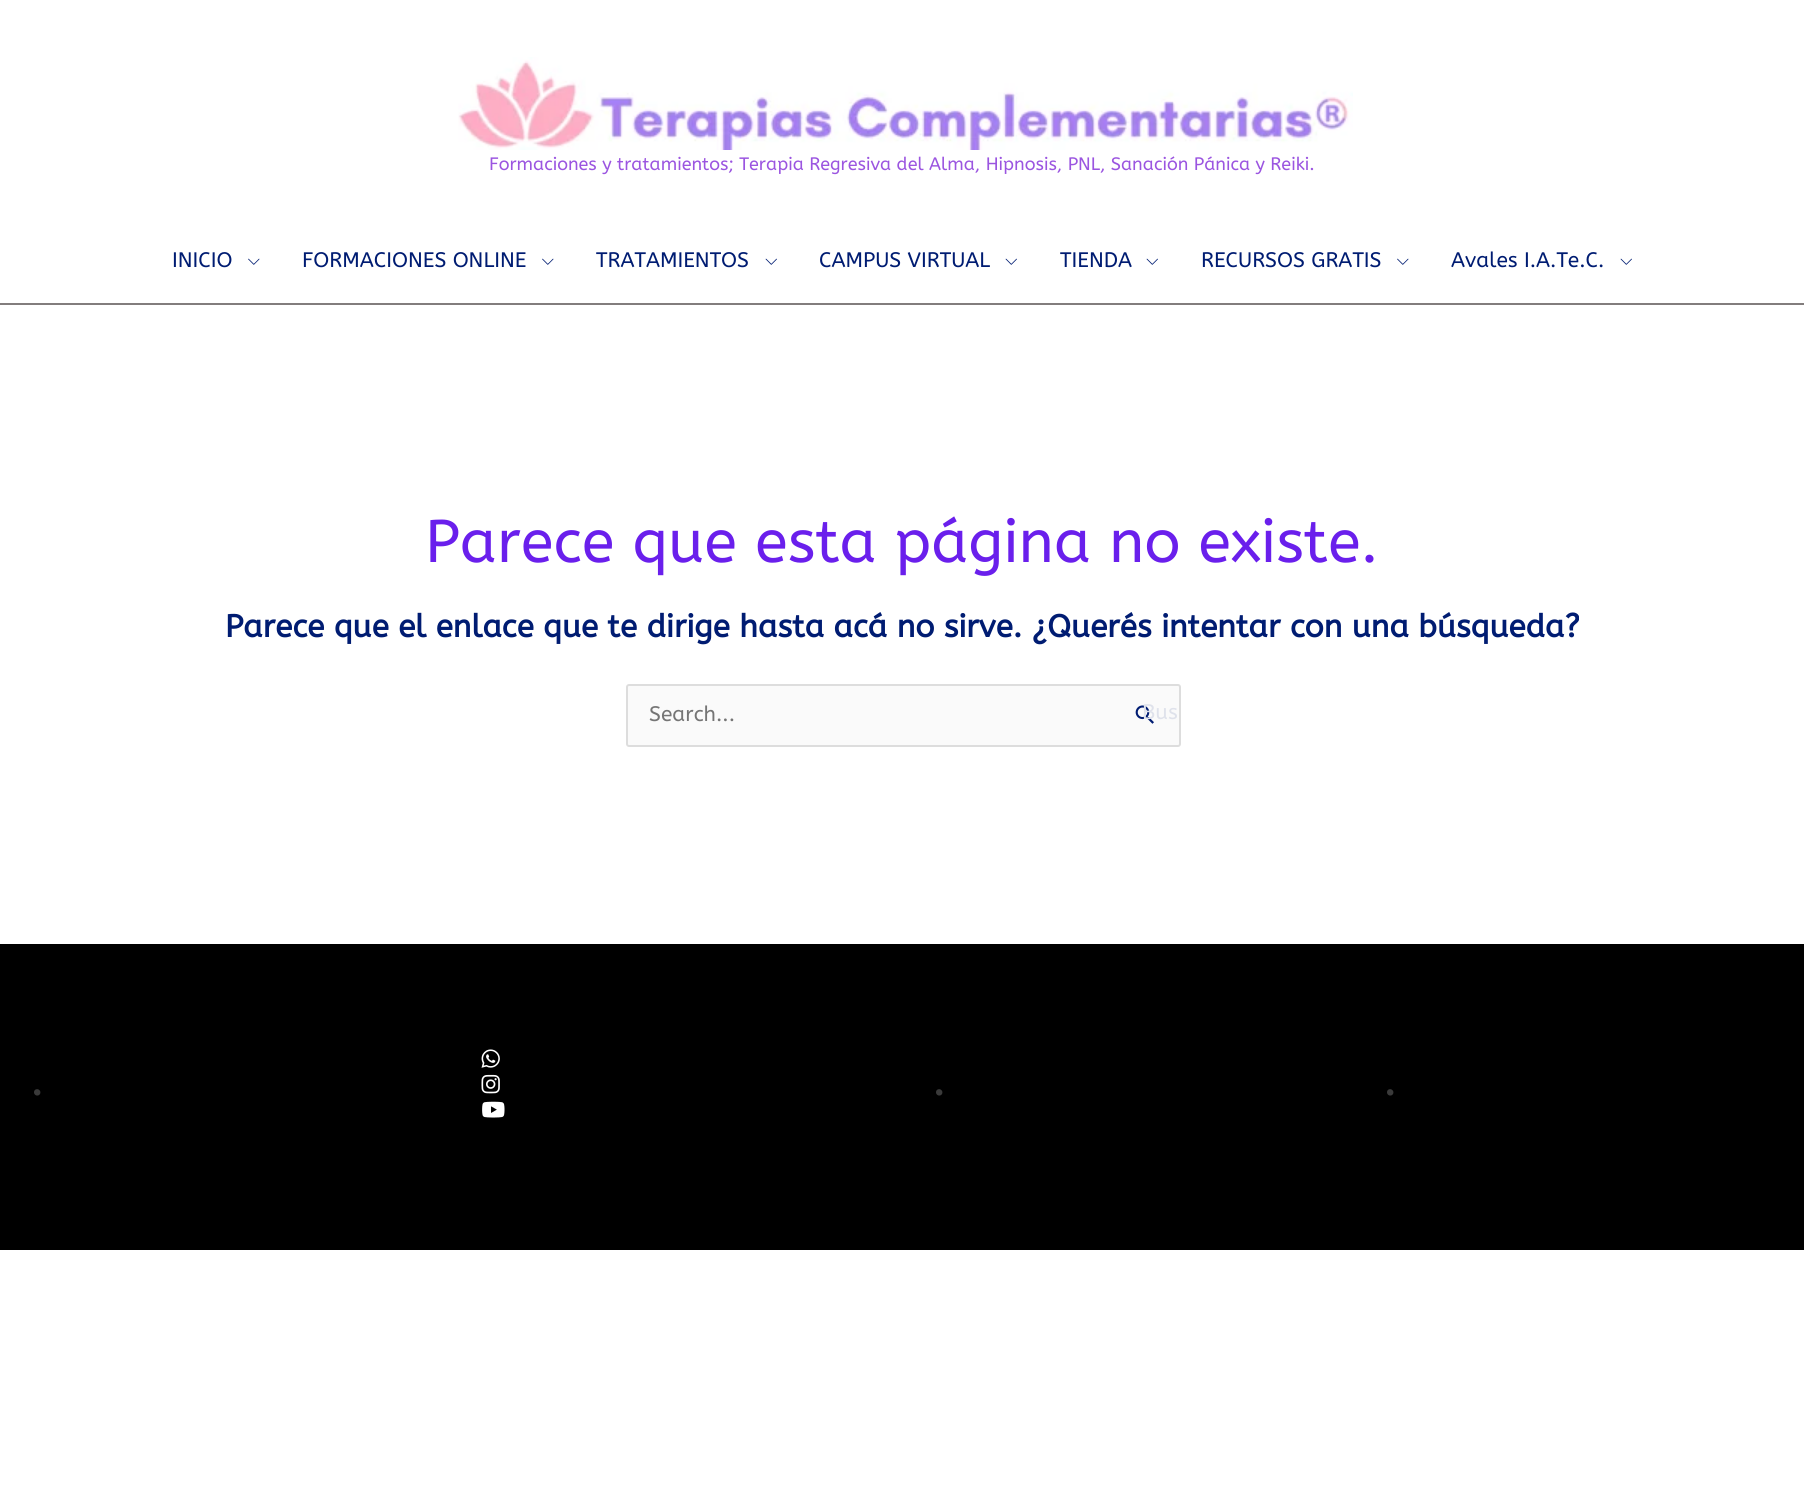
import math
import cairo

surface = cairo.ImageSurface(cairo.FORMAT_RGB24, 1804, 1488)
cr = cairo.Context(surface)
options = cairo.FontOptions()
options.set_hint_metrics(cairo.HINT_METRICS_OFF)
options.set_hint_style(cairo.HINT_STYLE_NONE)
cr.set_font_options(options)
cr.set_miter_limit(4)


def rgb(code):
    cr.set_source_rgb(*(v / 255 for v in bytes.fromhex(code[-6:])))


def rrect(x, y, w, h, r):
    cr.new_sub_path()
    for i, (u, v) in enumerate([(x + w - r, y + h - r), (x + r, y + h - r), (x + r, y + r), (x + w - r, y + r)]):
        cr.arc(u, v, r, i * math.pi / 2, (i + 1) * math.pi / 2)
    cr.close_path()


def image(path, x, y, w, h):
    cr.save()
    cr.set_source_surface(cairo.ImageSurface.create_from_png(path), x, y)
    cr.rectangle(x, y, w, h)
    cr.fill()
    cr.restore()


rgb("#ffffff")
cr.paint()
rgb("#827d7d")
cr.rectangle(0, 303, 1804, 2)
cr.fill()
image("img/1.png", 458, 57, 895, 93)
image("img/2.png", 248, 258, 12, 7)
image("img/2.png", 542, 258, 12, 7)
image("img/3.png", 765, 258, 12, 7)
image("img/3.png", 1005, 258, 12, 7)
image("img/3.png", 1146, 258, 12, 7)
image("img/2.png", 1397, 258, 12, 7)
image("img/3.png", 1620, 258, 12, 7)
rgb("#fafafa")
rrect(627, 685, 553, 61, 2)
cr.fill_preserve()
rgb("#dddddd")
cr.stroke()
image("img/4.png", 1135, 705, 19, 19)
rgb("#000000")
cr.rectangle(0, 944, 1804, 306)
cr.fill()
image("img/5.png", 481, 1049, 19, 19)
image("img/6.png", 481, 1074, 19, 20)
image("img/7.png", 482, 1101, 23, 17)
cr.select_font_face("ABeeZee")
cr.set_font_size(18)
rgb("#9b55e0")
cr.move_to(489, 170)
cr.show_text("Formaciones y tratamientos; Terapia Regresiva del Alma, Hipnosis, PNL, Sanación Pánica y Reiki.")
cr.set_font_size(21)
rgb("#001c72")
for x, y, s in [
    (172, 267, "INICIO"),
    (302, 267, "FORMACIONES ONLINE"),
    (596, 267, "TRATAMIENTOS"),
    (819, 267, "CAMPUS VIRTUAL"),
    (1060, 267, "TIENDA"),
    (1201, 267, "RECURSOS GRATIS"),
    (1451, 267, "Avales I.A.Te.C."),
]:
    cr.move_to(x, y)
    cr.show_text(s)
cr.set_font_size(60)
rgb("#6a1fec")
cr.move_to(425, 562)
cr.show_text("Parece que esta página no existe.")
cr.select_font_face("ABeeZee", cairo.FONT_SLANT_NORMAL, cairo.FONT_WEIGHT_BOLD)
cr.set_font_size(31.5)
rgb("#001c72")
cr.move_to(225, 637)
cr.show_text("Parece que el enlace que te dirige hasta acá no sirve. ¿Querés intentar con una búsqueda?")
cr.select_font_face("ABeeZee")
cr.set_font_size(21)
rgb("#757575")
cr.move_to(649, 721)
cr.show_text("Search...")
rgb("#dfe2eb")
cr.move_to(1142, 719)
cr.show_text("Bus")
cr.set_font_size(48)
rgb("#3a3a3a")
for x, y, s in [
    (30, 1095, "."),
    (932, 1095, "."),
    (1383, 1095, "."),
]:
    cr.move_to(x, y)
    cr.show_text(s)
surface.write_to_png("page.png")
